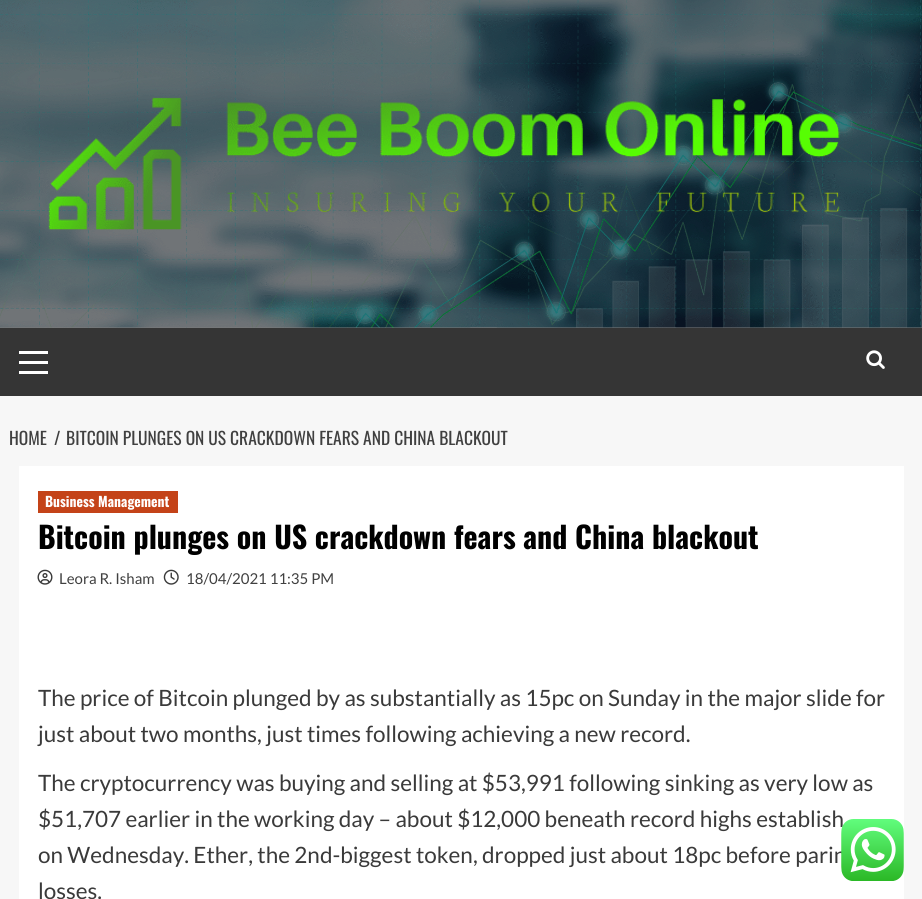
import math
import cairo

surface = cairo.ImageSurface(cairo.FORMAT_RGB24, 922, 899)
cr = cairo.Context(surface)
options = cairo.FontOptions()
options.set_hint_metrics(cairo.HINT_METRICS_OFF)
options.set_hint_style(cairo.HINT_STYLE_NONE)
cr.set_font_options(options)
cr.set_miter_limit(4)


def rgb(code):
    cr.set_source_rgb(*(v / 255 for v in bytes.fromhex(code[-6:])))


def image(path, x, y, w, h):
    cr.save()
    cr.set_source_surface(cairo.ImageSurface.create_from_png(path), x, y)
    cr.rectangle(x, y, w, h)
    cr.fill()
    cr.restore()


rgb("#f7f7f7")
cr.paint()
rgb("#7c7c7c")
cr.rectangle(0, 327, 922, 1)
cr.fill()
image("img/1.png", 0, 0, 922, 328)
image("img/2.png", 48, 97, 792, 133)
for x, y, w, h, color in [
    (0, 328, 922, 68, "#353535"),
    (19, 361, 29, 3, "#ffffff"),
    (19, 351, 29, 3, "#ffffff"),
    (19, 371, 29, 3, "#ffffff"),
]:
    rgb(color)
    cr.rectangle(x, y, w, h)
    cr.fill()
image("img/3.png", 866, 350, 19, 19)
cr.rectangle(19, 466, 885, 433)
cr.fill()
rgb("#c44318")
cr.rectangle(38, 491, 140, 22)
cr.fill()
image("img/4.png", 37, 569, 16, 16)
image("img/5.png", 163, 569, 16, 16)
cr.select_font_face("Oswald")
cr.set_font_size(17.5)
rgb("#404040")
for x, y, s in [
    (9, 445, "HOME"),
    (54, 445, "/"),
    (66, 445, "BITCOIN PLUNGES ON US CRACKDOWN FEARS AND CHINA BLACKOUT"),
]:
    cr.move_to(x, y)
    cr.show_text(s)
cr.select_font_face("Oswald", cairo.FONT_SLANT_NORMAL, cairo.FONT_WEIGHT_BOLD)
cr.set_font_size(13.75)
rgb("#ffffff")
cr.move_to(45, 507)
cr.show_text("Business Management")
cr.set_font_size(30)
rgb("#000000")
cr.move_to(38, 549)
cr.show_text("Bitcoin plunges on US crackdown fears and China blackout")
cr.select_font_face("Lato")
cr.set_font_size(15)
rgb("#404040")
cr.move_to(59, 584)
cr.show_text("Leora R. Isham")
cr.move_to(186, 584)
cr.show_text("18/04/2021 11:35 PM")
cr.set_font_size(22.5)
rgb("#3a3a3a")
for x, y, s in [
    (38, 706, "The price of Bitcoin plunged by as substantially as 15pc on Sunday in the major slide for"),
    (38, 742, "just about two months, just times following achieving a new record."),
    (38, 791, "The cryptocurrency was buying and selling at $53,991 following sinking as very low as"),
    (38, 827, "$51,707 earlier in the working day – about $12,000 beneath record highs establish"),
    (38, 863, "on Wednesday. Ether, the 2nd-biggest token, dropped just about 18pc before parin"),
    (38, 899, "losses."),
]:
    cr.move_to(x, y)
    cr.show_text(s)
image("img/6.png", 841, 819, 63, 62)
surface.write_to_png("page.png")
